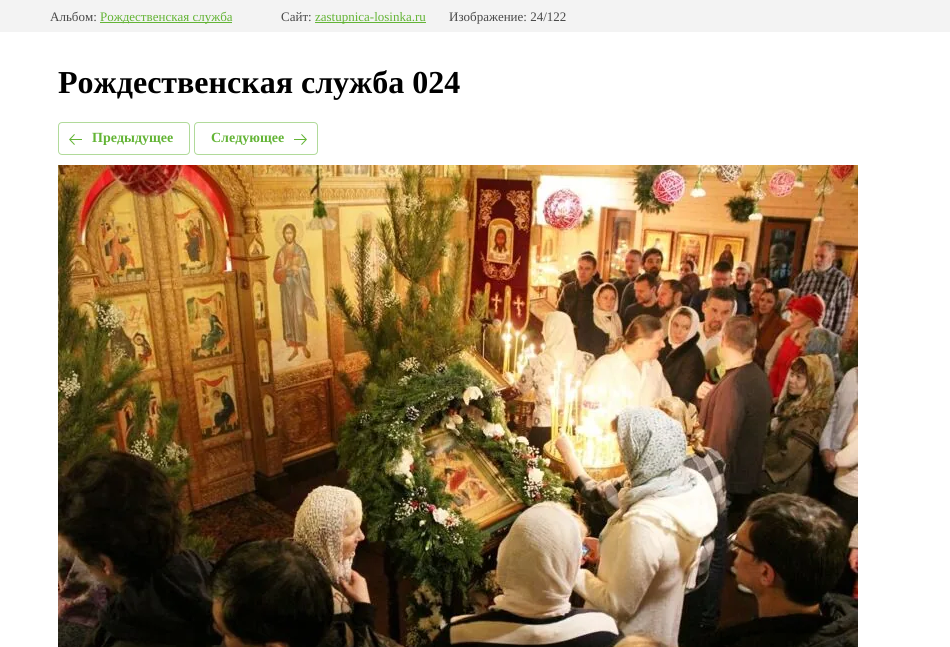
import math
import cairo

surface = cairo.ImageSurface(cairo.FORMAT_RGB24, 950, 647)
cr = cairo.Context(surface)
options = cairo.FontOptions()
options.set_hint_metrics(cairo.HINT_METRICS_OFF)
options.set_hint_style(cairo.HINT_STYLE_NONE)
cr.set_font_options(options)
cr.set_miter_limit(4)


def rgb(code):
    cr.set_source_rgb(*(v / 255 for v in bytes.fromhex(code[-6:])))


def rrect(x, y, w, h, r):
    cr.new_sub_path()
    for i, (u, v) in enumerate([(x + w - r, y + h - r), (x + r, y + h - r), (x + r, y + r), (x + w - r, y + r)]):
        cr.arc(u, v, r, i * math.pi / 2, (i + 1) * math.pi / 2)
    cr.close_path()


def image(path, x, y, w, h):
    cr.save()
    cr.set_source_surface(cairo.ImageSurface.create_from_png(path), x, y)
    cr.rectangle(x, y, w, h)
    cr.fill()
    cr.restore()


rgb("#ffffff")
cr.paint()
for x, y, w, h, color in [
    (0, 0, 950, 32, "#f3f3f3"),
    (100, 22, 132, 1, "#63b435"),
    (315, 22, 111, 1, "#63b435"),
]:
    rgb(color)
    cr.rectangle(x, y, w, h)
    cr.fill()
rrect(58.5, 122.5, 131, 32, 3.5)
rgb("#b1da9a")
cr.set_line_width(1)
cr.stroke()
image("img/1.png", 69, 134, 13, 11)
rrect(194.5, 122.5, 123, 32, 3.5)
cr.stroke()
image("img/2.png", 294, 134, 13, 11)
image("img/3.png", 58, 165, 800, 482)
cr.select_font_face("Liberation Serif")
cr.set_font_size(13)
rgb("#484848")
cr.move_to(50, 21)
cr.show_text("Альбом:")
rgb("#63b435")
cr.move_to(100, 21)
cr.show_text("Рождественская служба")
rgb("#484848")
cr.move_to(281, 21)
cr.show_text("Сайт:")
rgb("#63b435")
cr.move_to(315, 21)
cr.show_text("zastupnica-losinka.ru")
rgb("#484848")
cr.move_to(449, 21)
cr.show_text("Изображение: 24/122")
cr.select_font_face("Liberation Serif", cairo.FONT_SLANT_NORMAL, cairo.FONT_WEIGHT_BOLD)
cr.set_font_size(32)
rgb("#000000")
cr.move_to(58, 93)
cr.show_text("Рождественская служба 024")
cr.set_font_size(14)
rgb("#63b435")
cr.move_to(92, 142)
cr.show_text("Предыдущее")
cr.move_to(211, 142)
cr.show_text("Следующее")
surface.write_to_png("page.png")
